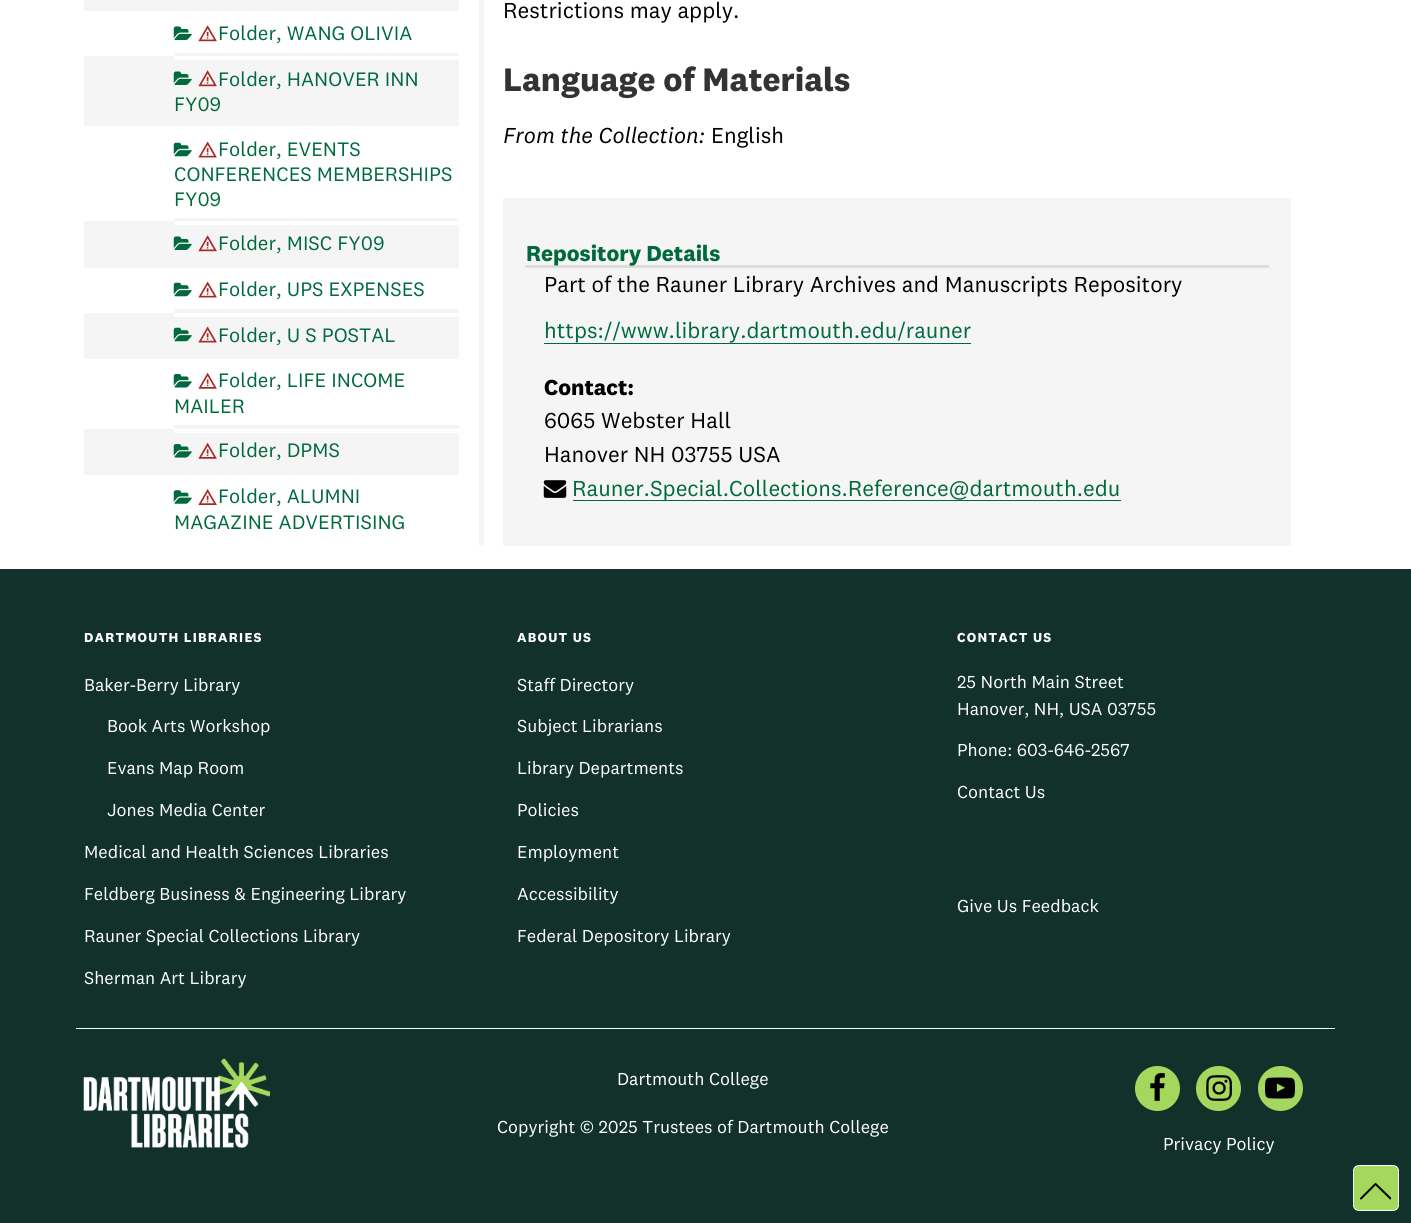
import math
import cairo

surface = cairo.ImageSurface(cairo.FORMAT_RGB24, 1411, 1223)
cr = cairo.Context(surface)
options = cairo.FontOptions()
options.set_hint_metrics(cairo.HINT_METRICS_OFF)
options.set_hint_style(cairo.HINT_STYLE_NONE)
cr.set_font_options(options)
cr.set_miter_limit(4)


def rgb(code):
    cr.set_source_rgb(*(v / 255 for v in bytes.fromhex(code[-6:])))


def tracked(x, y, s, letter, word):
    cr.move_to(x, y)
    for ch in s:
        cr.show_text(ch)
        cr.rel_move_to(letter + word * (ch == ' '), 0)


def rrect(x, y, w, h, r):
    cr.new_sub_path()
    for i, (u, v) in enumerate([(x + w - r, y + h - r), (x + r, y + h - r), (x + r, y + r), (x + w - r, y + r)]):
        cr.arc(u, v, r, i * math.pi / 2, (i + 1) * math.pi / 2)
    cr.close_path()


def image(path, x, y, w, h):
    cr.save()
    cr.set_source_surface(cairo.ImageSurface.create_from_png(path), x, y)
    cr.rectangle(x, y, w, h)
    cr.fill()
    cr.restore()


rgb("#ffffff")
cr.paint()
rgb("#f5f5f5")
cr.rectangle(84, 0, 375, 11)
cr.fill()
cr.rectangle(174, 53, 285, 3)
cr.fill()
image("img/1.png", 173, 26, 19, 14)
image("img/2.png", 198, 25, 19, 17)
cr.rectangle(174, 60, 285, 66)
cr.fill()
cr.rectangle(84, 56, 90, 70)
cr.fill()
image("img/3.png", 173, 71, 19, 14)
image("img/4.png", 198, 70, 19, 17)
cr.rectangle(174, 218, 285, 3)
cr.fill()
image("img/5.png", 173, 142, 19, 15)
image("img/6.png", 198, 141, 19, 17)
cr.rectangle(174, 225, 285, 43)
cr.fill()
cr.rectangle(84, 221, 90, 47)
cr.fill()
image("img/3.png", 173, 236, 19, 14)
image("img/4.png", 198, 235, 19, 17)
cr.rectangle(174, 309, 285, 4)
cr.fill()
image("img/5.png", 173, 282, 19, 15)
image("img/6.png", 198, 281, 19, 17)
cr.rectangle(174, 317, 285, 42)
cr.fill()
cr.rectangle(84, 313, 90, 46)
cr.fill()
image("img/7.png", 173, 327, 19, 15)
image("img/8.png", 198, 326, 19, 17)
cr.rectangle(174, 425, 285, 4)
cr.fill()
image("img/9.png", 173, 374, 19, 14)
image("img/10.png", 198, 372, 19, 17)
cr.rectangle(174, 433, 285, 42)
cr.fill()
cr.rectangle(84, 429, 90, 46)
cr.fill()
image("img/11.png", 173, 444, 19, 14)
image("img/12.png", 198, 442, 19, 17)
image("img/13.png", 173, 490, 19, 14)
image("img/14.png", 198, 489, 19, 16)
for x, y, w, h, color in [
    (479, 0, 5, 546, "#f5f5f5"),
    (503, 198, 788, 348, "#f5f5f5"),
    (525, 265, 744, 3, "#dddddd"),
    (544, 343, 427, 1, "#00693e"),
]:
    rgb(color)
    cr.rectangle(x, y, w, h)
    cr.fill()
image("img/15.png", 543, 480, 24, 18)
for x, y, w, h, color in [
    (573, 500, 548, 1, "#00693e"),
    (0, 569, 1411, 654, "#12312b"),
    (76, 1028, 1259, 1, "#ffffff"),
]:
    rgb(color)
    cr.rectangle(x, y, w, h)
    cr.fill()
image("img/16.png", 83, 1058, 187, 90)
rgb("#a5d75f")
cr.arc(1157.5, 1088.5, 22.5, 0, 2 * math.pi)
cr.fill()
image("img/17.png", 1150, 1073, 15, 28)
cr.arc(1218.5, 1088.5, 22.5, 0, 2 * math.pi)
cr.fill()
image("img/18.png", 1206, 1075, 26, 26)
cr.arc(1280.5, 1088.5, 22.5, 0, 2 * math.pi)
cr.fill()
image("img/19.png", 1265, 1077, 30, 22)
rrect(1353.5, 1165.5, 45, 45, 5.5)
cr.fill_preserve()
rgb("#ffffff")
cr.set_line_width(1)
cr.stroke()
cr.save()
cr.rectangle(1360, 1176, 31, 32)
cr.clip()
cr.new_path()
cr.move_to(1390.5, 1198.5)
cr.line_to(1375.5, 1184)
cr.line_to(1361, 1198.5)
rgb("#000000")
cr.set_line_width(2)
cr.set_line_cap(cairo.LINE_CAP_ROUND)
cr.set_line_join(cairo.LINE_JOIN_ROUND)
cr.stroke()
cr.restore()
cr.select_font_face("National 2")
cr.set_font_size(20.25)
rgb("#00693e")
for x, y, s in [
    (218, 40, "Folder, WANG OLIVIA"),
    (218, 86, "Folder, HANOVER INN"),
    (174, 111, "FY09"),
    (218, 156, "Folder, EVENTS"),
    (174, 181, "CONFERENCES MEMBERSHIPS"),
    (174, 206, "FY09"),
    (218, 250, "Folder, MISC FY09"),
    (218, 296, "Folder, UPS EXPENSES"),
    (218, 342, "Folder, U S POSTAL"),
    (218, 387, "Folder, LIFE INCOME"),
    (174, 413, "MAILER"),
    (218, 457, "Folder, DPMS"),
    (218, 503, "Folder, ALUMNI"),
    (174, 529, "MAGAZINE ADVERTISING"),
]:
    cr.move_to(x, y)
    cr.show_text(s)
cr.set_font_size(22.5)
rgb("#000000")
cr.move_to(503, 18)
cr.show_text("Restrictions may apply.")
cr.select_font_face("National 2", cairo.FONT_SLANT_NORMAL, cairo.FONT_WEIGHT_BOLD)
cr.set_font_size(33.75)
rgb("#333333")
cr.move_to(503, 91)
cr.show_text("Language of Materials")
cr.select_font_face("National 2", cairo.FONT_SLANT_ITALIC)
cr.set_font_size(22.5)
rgb("#000000")
cr.move_to(503, 143)
cr.show_text("From the Collection:")
cr.select_font_face("National 2")
cr.move_to(711, 143)
cr.show_text("English")
cr.select_font_face("National 2", cairo.FONT_SLANT_NORMAL, cairo.FONT_WEIGHT_BOLD)
rgb("#00693e")
cr.move_to(526, 261)
cr.show_text("Repository Details")
cr.select_font_face("National 2")
rgb("#000000")
cr.move_to(544, 292)
cr.show_text("Part of the Rauner Library Archives and Manuscripts Repository")
rgb("#00693e")
cr.move_to(544, 338)
cr.show_text("https://www.library.dartmouth.edu/rauner")
cr.select_font_face("National 2", cairo.FONT_SLANT_NORMAL, cairo.FONT_WEIGHT_BOLD)
rgb("#000000")
cr.move_to(544, 395)
cr.show_text("Contact:")
cr.select_font_face("National 2")
cr.move_to(544, 428)
cr.show_text("6065 Webster Hall")
cr.move_to(544, 462)
cr.show_text("Hanover NH 03755 USA")
rgb("#00693e")
cr.move_to(572, 496)
cr.show_text("Rauner.Special.Collections.Reference@dartmouth.edu")
cr.select_font_face("National 2", cairo.FONT_SLANT_NORMAL, cairo.FONT_WEIGHT_BOLD)
cr.set_font_size(13.5)
rgb("#ffffff")
tracked(84, 642, "DARTMOUTH LIBRARIES", 1.25, 0)
cr.select_font_face("National 2")
cr.set_font_size(18)
for x, y, s in [
    (84, 691, "Baker-Berry Library"),
    (107, 732, "Book Arts Workshop"),
    (107, 774, "Evans Map Room"),
    (107, 816, "Jones Media Center"),
    (84, 858, "Medical and Health Sciences Libraries"),
    (84, 900, "Feldberg Business & Engineering Library"),
    (84, 942, "Rauner Special Collections Library"),
    (84, 984, "Sherman Art Library"),
]:
    cr.move_to(x, y)
    cr.show_text(s)
cr.select_font_face("National 2", cairo.FONT_SLANT_NORMAL, cairo.FONT_WEIGHT_BOLD)
cr.set_font_size(13.5)
tracked(517, 642, "ABOUT US", 1.25, 0)
cr.select_font_face("National 2")
cr.set_font_size(18)
for x, y, s in [
    (517, 691, "Staff Directory"),
    (517, 732, "Subject Librarians"),
    (517, 774, "Library Departments"),
    (517, 816, "Policies"),
    (517, 858, "Employment"),
    (517, 900, "Accessibility"),
    (517, 942, "Federal Depository Library"),
]:
    cr.move_to(x, y)
    cr.show_text(s)
cr.select_font_face("National 2", cairo.FONT_SLANT_NORMAL, cairo.FONT_WEIGHT_BOLD)
cr.set_font_size(13.5)
tracked(957, 642, "CONTACT US", 1.25, 0)
cr.select_font_face("National 2")
cr.set_font_size(18)
for x, y, s in [
    (957, 688, "25 North Main Street"),
    (957, 715, "Hanover, NH, USA 03755"),
    (957, 756, "Phone: 603-646-2567"),
    (957, 798, "Contact Us"),
    (957, 912, "Give Us Feedback"),
    (617, 1085, "Dartmouth College"),
    (497, 1133, "Copyright © 2025 Trustees of Dartmouth College"),
    (1163, 1150, "Privacy Policy"),
]:
    cr.move_to(x, y)
    cr.show_text(s)
surface.write_to_png("page.png")
